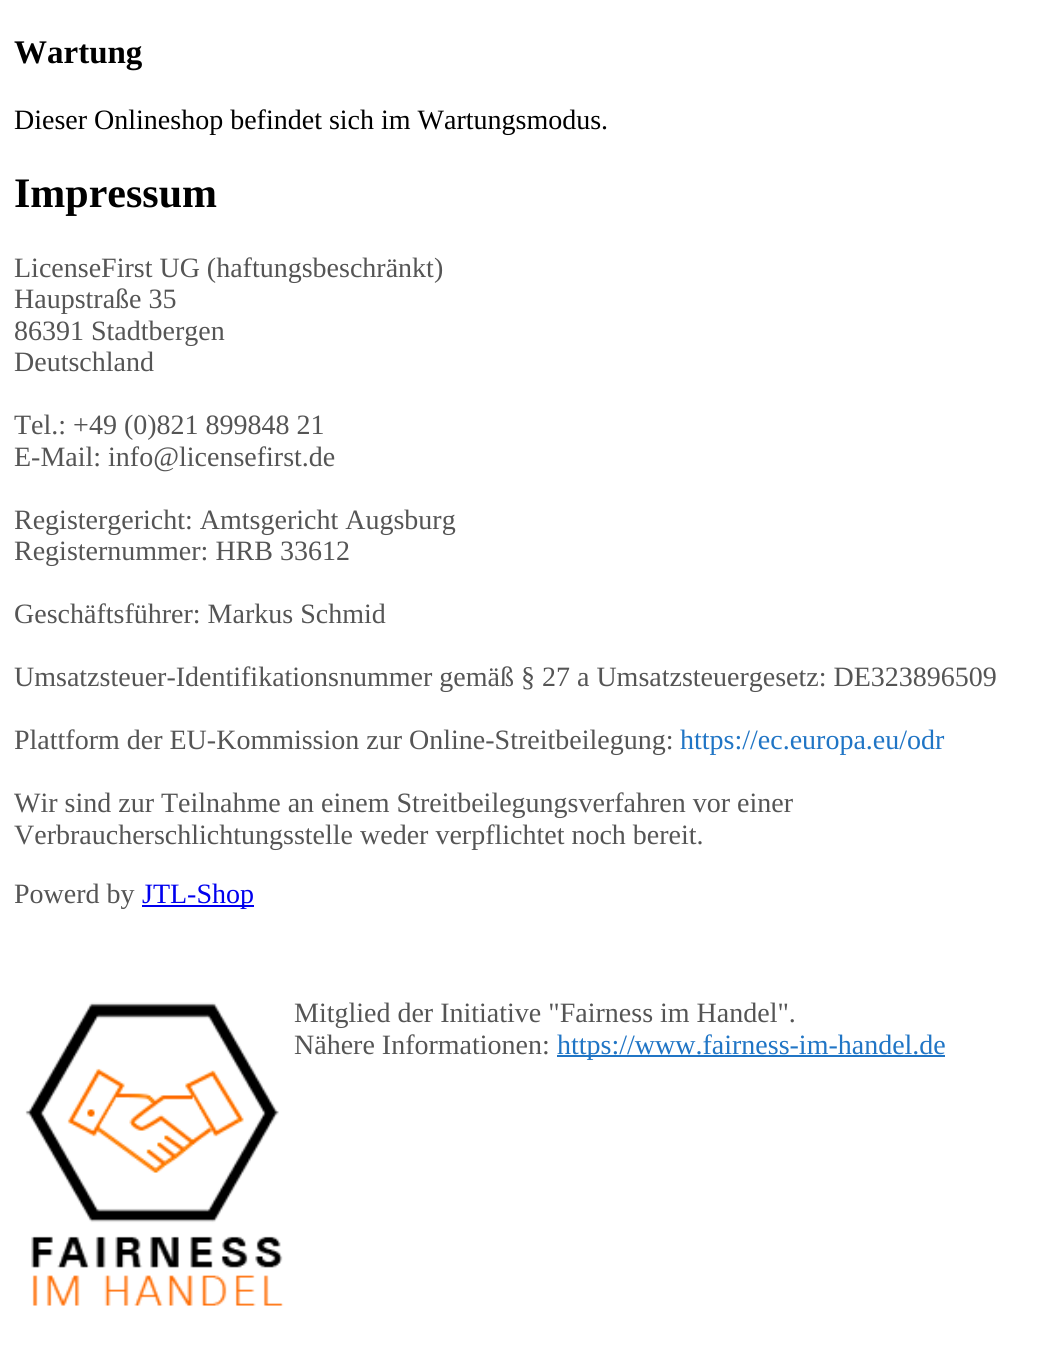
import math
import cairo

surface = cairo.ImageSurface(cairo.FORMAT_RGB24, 1043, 1367)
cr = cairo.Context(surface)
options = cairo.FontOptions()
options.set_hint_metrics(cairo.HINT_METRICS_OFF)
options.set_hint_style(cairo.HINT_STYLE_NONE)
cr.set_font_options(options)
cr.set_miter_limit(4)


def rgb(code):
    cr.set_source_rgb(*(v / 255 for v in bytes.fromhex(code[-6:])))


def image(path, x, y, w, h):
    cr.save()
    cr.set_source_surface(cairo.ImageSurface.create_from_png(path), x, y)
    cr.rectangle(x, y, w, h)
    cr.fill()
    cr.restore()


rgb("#ffffff")
cr.paint()
rgb("#0000ee")
cr.rectangle(142, 905, 112, 2)
cr.fill()
image("img/1.png", 25, 1002, 259, 304)
rgb("#2075c5")
cr.rectangle(557, 1055, 388, 2)
cr.fill()
cr.select_font_face("Liberation Serif", cairo.FONT_SLANT_NORMAL, cairo.FONT_WEIGHT_BOLD)
cr.set_font_size(33)
rgb("#000000")
cr.move_to(14, 63)
cr.show_text("Wartung")
cr.select_font_face("Liberation Serif")
cr.set_font_size(28)
cr.move_to(14, 129)
cr.show_text("Dieser Onlineshop befindet sich im Wartungsmodus.")
cr.select_font_face("Liberation Serif", cairo.FONT_SLANT_NORMAL, cairo.FONT_WEIGHT_BOLD)
cr.set_font_size(42)
cr.move_to(14, 207)
cr.show_text("Impressum")
cr.select_font_face("Liberation Serif")
cr.set_font_size(28)
rgb("#555555")
for x, y, s in [
    (14, 277, "LicenseFirst UG (haftungsbeschränkt)"),
    (14, 308, "Haupstraße 35"),
    (14, 340, "86391 Stadtbergen"),
    (14, 371, "Deutschland"),
    (14, 434, "Tel.: +49 (0)821 899848 21"),
    (14, 466, "E-Mail: info@licensefirst.de"),
    (14, 529, "Registergericht: Amtsgericht Augsburg"),
    (14, 560, "Registernummer: HRB 33612"),
    (14, 623, "Geschäftsführer: Markus Schmid"),
    (14, 686, "Umsatzsteuer-Identifikationsnummer gemäß § 27 a Umsatzsteuergesetz: DE323896509"),
    (14, 749, "Plattform der EU-Kommission zur Online-Streitbeilegung:"),
]:
    cr.move_to(x, y)
    cr.show_text(s)
rgb("#2075c5")
cr.move_to(680, 749)
cr.show_text("https://ec.europa.eu/odr")
rgb("#555555")
for x, y, s in [
    (14, 812, "Wir sind zur Teilnahme an einem Streitbeilegungsverfahren vor einer"),
    (14, 844, "Verbraucherschlichtungsstelle weder verpflichtet noch bereit."),
    (14, 903, "Powerd by"),
]:
    cr.move_to(x, y)
    cr.show_text(s)
rgb("#0000ee")
cr.move_to(142, 903)
cr.show_text("JTL-Shop")
rgb("#555555")
cr.move_to(294, 1022)
cr.show_text("Mitglied der Initiative \"Fairness im Handel\".")
cr.move_to(294, 1054)
cr.show_text("Nähere Informationen:")
rgb("#2075c5")
cr.move_to(557, 1054)
cr.show_text("https://www.fairness-im-handel.de")
surface.write_to_png("page.png")
